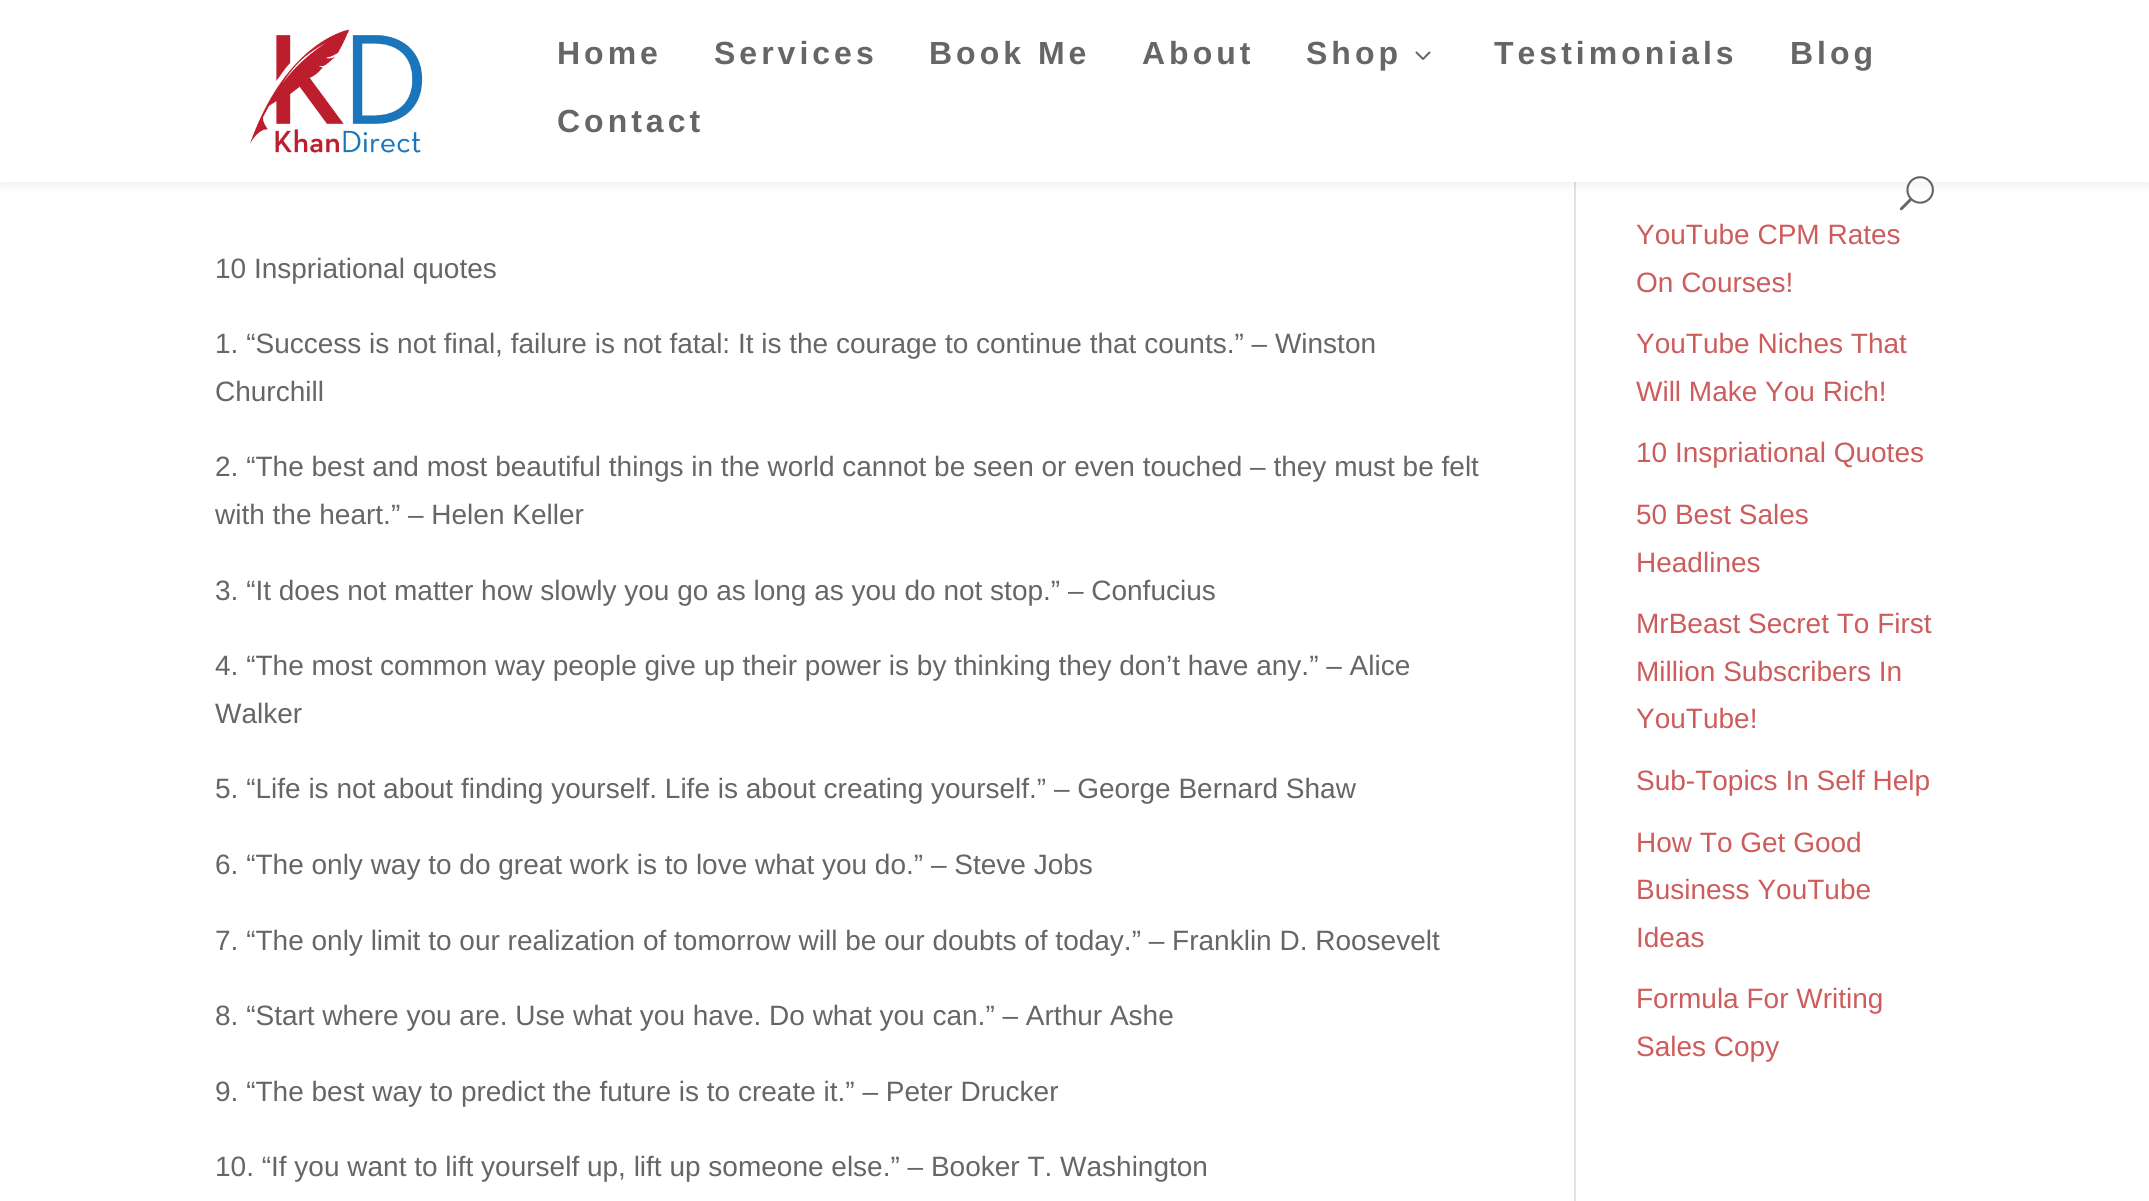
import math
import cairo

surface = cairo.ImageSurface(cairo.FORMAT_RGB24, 2149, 1201)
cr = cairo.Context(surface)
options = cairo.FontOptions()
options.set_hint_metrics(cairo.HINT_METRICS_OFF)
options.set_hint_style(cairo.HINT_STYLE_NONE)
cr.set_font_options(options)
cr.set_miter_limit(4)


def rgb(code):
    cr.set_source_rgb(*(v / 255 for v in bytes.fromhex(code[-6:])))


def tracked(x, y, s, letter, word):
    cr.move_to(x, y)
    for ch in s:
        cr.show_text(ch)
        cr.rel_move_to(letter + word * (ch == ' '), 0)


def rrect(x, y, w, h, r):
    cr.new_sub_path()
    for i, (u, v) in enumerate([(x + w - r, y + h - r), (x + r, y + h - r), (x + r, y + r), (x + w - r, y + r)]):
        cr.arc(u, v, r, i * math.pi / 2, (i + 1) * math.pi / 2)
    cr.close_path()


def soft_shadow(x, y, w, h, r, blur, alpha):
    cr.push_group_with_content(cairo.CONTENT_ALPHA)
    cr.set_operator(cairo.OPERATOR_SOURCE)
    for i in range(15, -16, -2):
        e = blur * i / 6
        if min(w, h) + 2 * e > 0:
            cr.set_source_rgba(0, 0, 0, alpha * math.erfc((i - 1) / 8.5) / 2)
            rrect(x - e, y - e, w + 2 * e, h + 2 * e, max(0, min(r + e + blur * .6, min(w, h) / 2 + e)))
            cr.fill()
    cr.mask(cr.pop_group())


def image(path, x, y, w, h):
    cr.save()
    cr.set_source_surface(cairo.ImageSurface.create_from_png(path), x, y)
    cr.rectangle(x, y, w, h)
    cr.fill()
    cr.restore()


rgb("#ffffff")
cr.paint()
rgb("#e2e2e2")
cr.rectangle(1574, 182, 2, 1019)
cr.fill()
rgb("#000000")
soft_shadow(0, 0, 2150, 182, 0, 7, 0.1)
rgb("#ffffff")
cr.rectangle(0, 0, 2149, 182)
cr.fill()
image("img/1.png", 250, 29, 173, 124)
image("img/2.png", 1415, 51, 16, 9)
image("img/3.png", 1899, 176, 35, 35)
cr.select_font_face("Liberation Sans", cairo.FONT_SLANT_NORMAL, cairo.FONT_WEIGHT_BOLD)
cr.set_font_size(32)
rgb("#666666")
for x, y, s in [
    (557, 64, "Home"),
    (714, 64, "Services"),
    (929, 64, "Book Me"),
    (1142, 64, "About"),
    (1306, 64, "Shop"),
    (1494, 64, "Testimonials"),
    (1790, 64, "Blog"),
    (557, 132, "Contact"),
]:
    tracked(x, y, s, 4, 0)
cr.select_font_face("Liberation Sans")
cr.set_font_size(28)
for x, y, s in [
    (215, 278, "10 Inspriational quotes"),
    (215, 353, "1. “Success is not final, failure is not fatal: It is the courage to continue that counts.” – Winston"),
    (215, 401, "Churchill"),
    (215, 476, "2. “The best and most beautiful things in the world cannot be seen or even touched – they must be felt"),
    (215, 524, "with the heart.” – Helen Keller"),
    (215, 600, "3. “It does not matter how slowly you go as long as you do not stop.” – Confucius"),
    (215, 675, "4. “The most common way people give up their power is by thinking they don’t have any.” – Alice"),
    (215, 723, "Walker"),
    (215, 798, "5. “Life is not about finding yourself. Life is about creating yourself.” – George Bernard Shaw"),
    (215, 874, "6. “The only way to do great work is to love what you do.” – Steve Jobs"),
    (215, 950, "7. “The only limit to our realization of tomorrow will be our doubts of today.” – Franklin D. Roosevelt"),
    (215, 1025, "8. “Start where you are. Use what you have. Do what you can.” – Arthur Ashe"),
    (215, 1101, "9. “The best way to predict the future is to create it.” – Peter Drucker"),
    (215, 1176, "10. “If you want to lift yourself up, lift up someone else.” – Booker T. Washington"),
]:
    cr.move_to(x, y)
    cr.show_text(s)
rgb("#cd5c5c")
for x, y, s in [
    (1636, 244, "YouTube CPM Rates"),
    (1636, 292, "On Courses!"),
    (1636, 353, "YouTube Niches That"),
    (1636, 401, "Will Make You Rich!"),
    (1636, 462, "10 Inspriational Quotes"),
    (1636, 524, "50 Best Sales"),
    (1636, 572, "Headlines"),
    (1636, 633, "MrBeast Secret To First"),
    (1636, 681, "Million Subscribers In"),
    (1636, 728, "YouTube!"),
    (1636, 790, "Sub-Topics In Self Help"),
    (1636, 852, "How To Get Good"),
    (1636, 899, "Business YouTube"),
    (1636, 947, "Ideas"),
    (1636, 1008, "Formula For Writing"),
    (1636, 1056, "Sales Copy"),
]:
    cr.move_to(x, y)
    cr.show_text(s)
surface.write_to_png("page.png")
